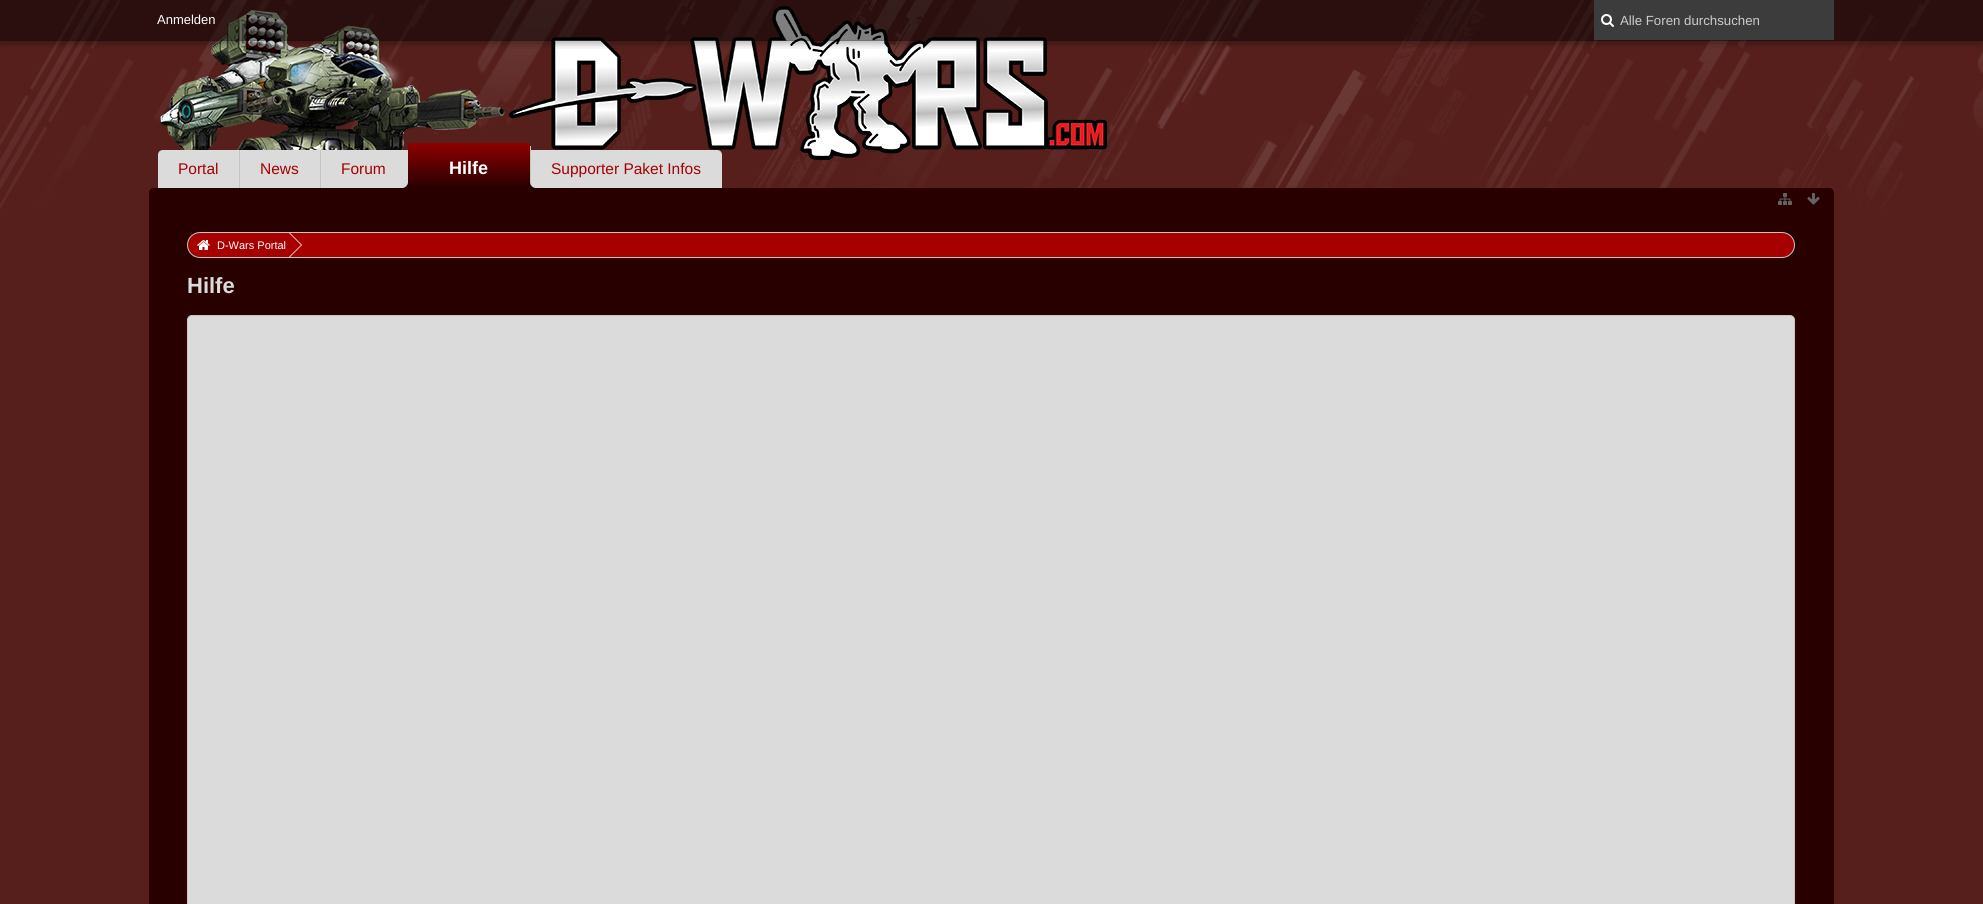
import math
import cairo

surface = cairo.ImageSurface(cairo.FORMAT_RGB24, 1983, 904)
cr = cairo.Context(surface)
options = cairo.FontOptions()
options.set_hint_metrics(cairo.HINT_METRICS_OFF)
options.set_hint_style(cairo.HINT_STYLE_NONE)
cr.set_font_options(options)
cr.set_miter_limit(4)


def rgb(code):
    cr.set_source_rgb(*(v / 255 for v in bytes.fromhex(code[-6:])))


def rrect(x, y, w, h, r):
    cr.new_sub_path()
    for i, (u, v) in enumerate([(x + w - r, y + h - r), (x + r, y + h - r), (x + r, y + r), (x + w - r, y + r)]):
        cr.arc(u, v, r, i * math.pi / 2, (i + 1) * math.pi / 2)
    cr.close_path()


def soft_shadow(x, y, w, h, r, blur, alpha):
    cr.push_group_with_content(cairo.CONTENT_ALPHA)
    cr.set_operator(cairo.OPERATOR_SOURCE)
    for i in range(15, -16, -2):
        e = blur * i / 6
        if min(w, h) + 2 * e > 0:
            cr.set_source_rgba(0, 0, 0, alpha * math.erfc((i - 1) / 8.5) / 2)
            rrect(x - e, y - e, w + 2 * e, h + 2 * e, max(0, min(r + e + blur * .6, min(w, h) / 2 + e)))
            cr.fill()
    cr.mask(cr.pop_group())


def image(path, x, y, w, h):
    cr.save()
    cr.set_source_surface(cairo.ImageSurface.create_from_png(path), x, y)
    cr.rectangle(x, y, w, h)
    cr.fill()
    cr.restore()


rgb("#561f1c")
cr.paint()
image("img/1.png", 0, 0, 1983, 209)
image("img/2.png", 159, 6, 948, 154)
cr.save()
cr.rectangle(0, 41, 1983, 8)
cr.clip()
rgb("#000000")
soft_shadow(0, 3, 1983, 41, 0, 3.5, 0.3)
cr.restore()
cr.set_source_rgba(0, 0, 0, 0.5)
cr.rectangle(0, 0, 1983, 41)
cr.fill()
cr.set_source_rgba(0, 0, 0, 0.1)
cr.rectangle(0, 40, 1983, 1)
cr.fill()
rgb("#3c3c3c")
cr.rectangle(1594, 0, 240, 40)
cr.fill()
image("img/3.png", 1601, 14, 13, 13)
rgb("#dbdbdb")
cr.new_path()
cr.move_to(163, 150)
cr.line_to(717, 150)
cr.curve_to(720, 150, 722, 152, 722, 155)
cr.line_to(722, 188)
cr.line_to(158, 188)
cr.line_to(158, 155)
cr.curve_to(158, 152, 160, 150, 163, 150)
cr.close_path()
cr.fill()
rgb("#c4c4c4")
cr.rectangle(239, 150, 1, 38)
cr.fill()
cr.rectangle(320, 150, 1, 38)
cr.fill()
gradient = cairo.LinearGradient(469, 143, 469, 188)
gradient.add_color_stop_rgba(0, 0.557, 0, 0, 1)
gradient.add_color_stop_rgba(1, 0.157, 0, 0, 1)
cr.set_source(gradient)
cr.new_path()
cr.move_to(413, 143)
cr.line_to(526, 143)
cr.curve_to(529, 143, 531, 145, 531, 148)
cr.line_to(531, 188)
cr.line_to(408, 188)
cr.line_to(408, 148)
cr.curve_to(408, 145, 410, 143, 413, 143)
cr.close_path()
cr.fill()
rgb("#c4c4c4")
cr.rectangle(530, 146, 1, 42)
cr.fill()
rgb("#280000")
cr.new_path()
cr.move_to(403, 188)
cr.line_to(403, 190)
cr.curve_to(407.5, 190, 410, 187.5, 410, 183)
cr.line_to(408, 183)
cr.curve_to(407.5, 185.5, 405.5, 187.5, 403, 188)
cr.close_path()
cr.fill()
cr.new_path()
cr.move_to(528, 183)
cr.curve_to(528, 187.5, 530.5, 190, 535, 190)
cr.line_to(535, 188)
cr.curve_to(532.5, 187.5, 530.5, 185.5, 530, 183)
cr.close_path()
cr.fill()
cr.new_path()
cr.move_to(154, 188)
cr.line_to(1829, 188)
cr.curve_to(1832, 188, 1834, 190, 1834, 193)
cr.line_to(1834, 212)
cr.line_to(149, 212)
cr.line_to(149, 193)
cr.curve_to(149, 190, 151, 188, 154, 188)
cr.close_path()
cr.fill()
image("img/4.png", 1778, 193, 14, 12)
image("img/5.png", 1807, 193, 13, 12)
cr.rectangle(149, 212, 1685, 692)
cr.fill()
rgb("#a60000")
rrect(187.5, 232.5, 1607, 25, 12.5)
cr.fill_preserve()
rgb("#c4c4c4")
cr.set_line_width(1)
cr.stroke()
image("img/6.png", 197, 240, 13, 10)
rgb("#ffffff")
cr.new_path()
cr.move_to(290, 233)
cr.line_to(302, 245)
cr.line_to(290, 257)
cr.line_to(287, 257)
cr.line_to(287, 233)
cr.close_path()
cr.fill()
rgb("#a60000")
cr.new_path()
cr.move_to(289, 233)
cr.line_to(301, 245)
cr.line_to(289, 257)
cr.line_to(286, 257)
cr.line_to(286, 233)
cr.close_path()
cr.fill()
rgb("#6e0000")
soft_shadow(187, 316, 1608, 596, 5, 1, 1)
rgb("#dbdbdb")
rrect(187.5, 315.5, 1607, 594, 4.5)
cr.fill_preserve()
rgb("#c4c4c4")
cr.stroke()
cr.select_font_face("Liberation Sans")
cr.set_font_size(13)
rgb("#ffffff")
cr.move_to(157, 24)
cr.show_text("Anmelden")
cr.set_font_size(13.25)
rgb("#cccccc")
cr.move_to(1620, 25)
cr.show_text("Alle Foren durchsuchen")
cr.set_font_size(15.5)
rgb("#a60000")
for x, y, s in [
    (178, 174, "Portal"),
    (260, 174, "News"),
    (341, 174, "Forum"),
]:
    cr.move_to(x, y)
    cr.show_text(s)
cr.select_font_face("Liberation Sans", cairo.FONT_SLANT_NORMAL, cairo.FONT_WEIGHT_BOLD)
cr.set_font_size(18)
rgb("#ffffff")
cr.move_to(449, 174)
cr.show_text("Hilfe")
cr.select_font_face("Liberation Sans")
cr.set_font_size(15.5)
rgb("#a60000")
cr.move_to(551, 174)
cr.show_text("Supporter Paket Infos")
cr.set_font_size(11)
rgb("#ffffff")
cr.move_to(217, 249)
cr.show_text("D-Wars Portal")
cr.select_font_face("Liberation Sans", cairo.FONT_SLANT_NORMAL, cairo.FONT_WEIGHT_BOLD)
cr.set_font_size(22)
rgb("#dbdbdb")
cr.move_to(187, 293)
cr.show_text("Hilfe")
surface.write_to_png("page.png")
